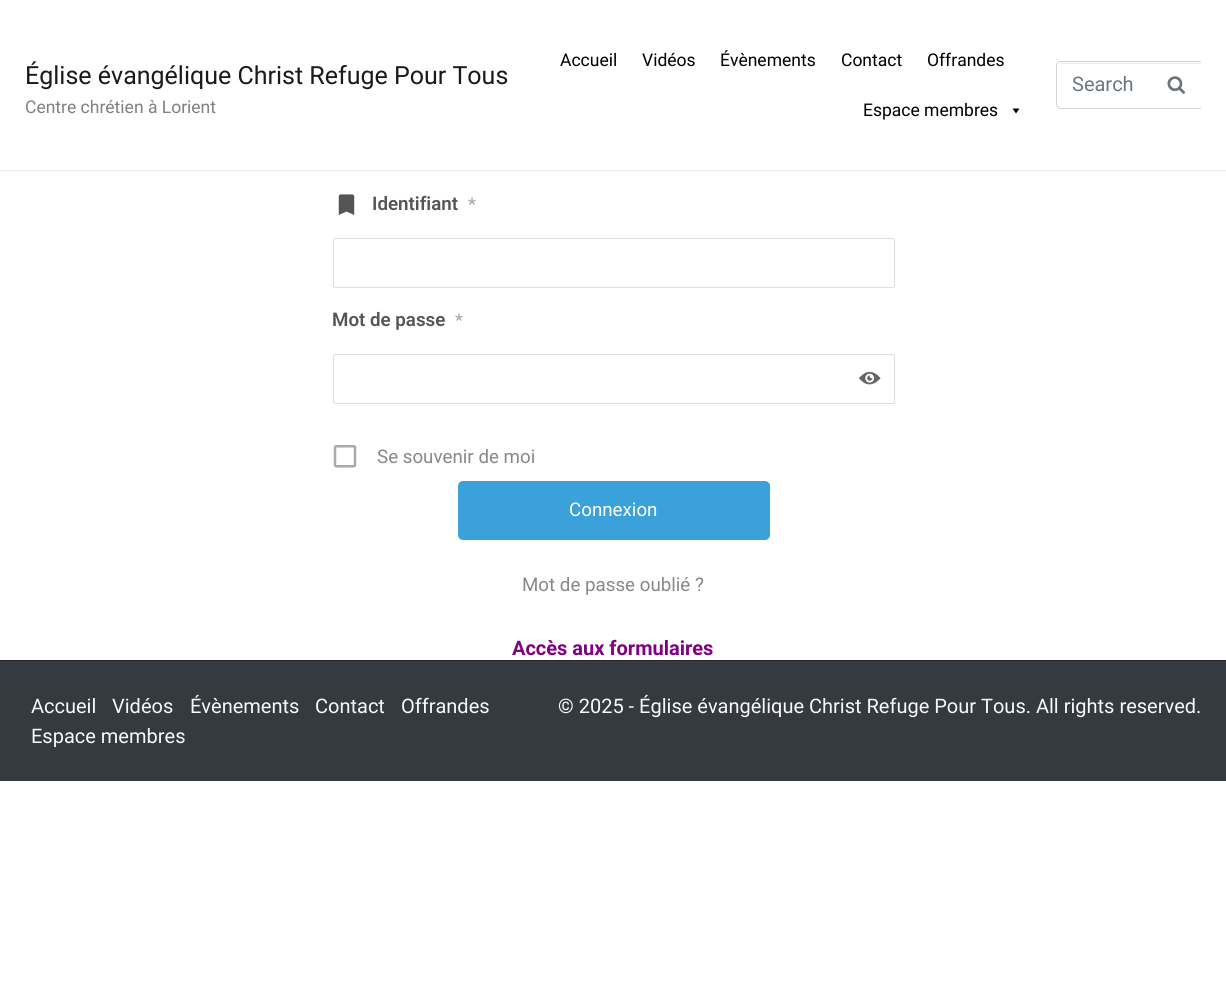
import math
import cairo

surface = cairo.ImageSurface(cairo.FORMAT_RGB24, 1226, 1007)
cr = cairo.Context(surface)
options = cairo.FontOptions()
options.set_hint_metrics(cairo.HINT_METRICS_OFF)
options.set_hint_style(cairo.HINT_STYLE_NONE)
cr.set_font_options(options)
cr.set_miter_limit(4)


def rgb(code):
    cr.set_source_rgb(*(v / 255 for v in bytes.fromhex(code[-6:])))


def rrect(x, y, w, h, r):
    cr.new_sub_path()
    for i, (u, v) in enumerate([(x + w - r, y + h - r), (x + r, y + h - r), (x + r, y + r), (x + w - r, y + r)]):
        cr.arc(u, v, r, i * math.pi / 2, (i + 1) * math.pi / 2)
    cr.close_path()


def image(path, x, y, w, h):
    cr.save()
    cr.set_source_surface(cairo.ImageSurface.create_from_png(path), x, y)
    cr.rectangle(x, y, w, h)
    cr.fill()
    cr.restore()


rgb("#ffffff")
cr.paint()
rgb("#e9ecef")
cr.rectangle(0, 170, 1226, 1)
cr.fill()
rgb("#000000")
cr.new_path()
cr.move_to(1019.5, 108.5)
cr.line_to(1016, 113.5)
cr.line_to(1012.5, 108.5)
cr.close_path()
cr.fill()
cr.save()
cr.rectangle(1056, 61, 145, 48)
cr.clip()
rgb("#ececec")
cr.new_path()
cr.move_to(1061, 64)
cr.line_to(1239, 64)
cr.curve_to(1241, 64, 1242, 65, 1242, 68)
cr.line_to(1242, 107)
cr.curve_to(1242, 106, 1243, 105, 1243, 104)
cr.line_to(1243, 67)
cr.curve_to(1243, 65, 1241, 63, 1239, 63)
cr.line_to(1062, 63)
cr.curve_to(1060, 63, 1058, 65, 1058, 67)
cr.line_to(1058, 68)
cr.curve_to(1058, 65, 1059, 64, 1061, 64)
cr.close_path()
cr.fill()
rrect(1056.5, 61.5, 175, 47, 4.5)
rgb("#ced4da")
cr.set_line_width(1)
cr.stroke()
cr.restore()
image("img/1.png", 1167, 76, 18, 18)
image("img/2.png", 338, 194, 17, 21)
rrect(333.5, 238.5, 561, 49, 2)
rgb("#dddddd")
cr.set_line_width(1)
cr.stroke()
rrect(333.5, 354.5, 561, 49, 2)
cr.stroke()
image("img/3.png", 858, 371, 23, 14)
image("img/4.png", 333, 445, 24, 23)
rgb("#3ba1da")
rrect(458, 481, 312, 59, 5)
cr.fill()
rgb("#343a40")
cr.rectangle(0, 661, 1226, 120)
cr.fill()
rgb("#212529")
cr.rectangle(0, 660, 1226, 1)
cr.fill()
cr.select_font_face("Roboto")
cr.set_font_size(25)
rgb("#1a1a1a")
cr.move_to(25, 84)
cr.show_text("Église évangélique Christ Refuge Pour Tous")
cr.set_font_size(17.5)
rgb("#808080")
cr.move_to(25, 113)
cr.show_text("Centre chrétien à Lorient")
rgb("#000000")
for x, y, s in [
    (560, 66, "Accueil"),
    (642, 66, "Vidéos"),
    (720, 66, "Évènements"),
    (841, 66, "Contact"),
    (927, 66, "Offrandes"),
    (863, 116, "Espace membres"),
]:
    cr.move_to(x, y)
    cr.show_text(s)
cr.set_font_size(20)
rgb("#6c757d")
cr.move_to(1072, 91)
cr.show_text("Search")
cr.select_font_face("Roboto SemiBold")
cr.set_font_size(18.75)
rgb("#555555")
cr.move_to(372, 210)
cr.show_text("Identifiant")
cr.set_font_size(17.5)
rgb("#aaaaaa")
cr.move_to(468, 210)
cr.show_text("*")
cr.set_font_size(18.75)
rgb("#555555")
cr.move_to(332, 326)
cr.show_text("Mot de passe")
cr.set_font_size(17.5)
rgb("#aaaaaa")
cr.move_to(455, 326)
cr.show_text("*")
cr.select_font_face("Roboto")
cr.set_font_size(18.75)
rgb("#888888")
cr.move_to(377, 463)
cr.show_text("Se souvenir de moi")
rgb("#ffffff")
cr.move_to(569, 516)
cr.show_text("Connexion")
rgb("#888888")
cr.move_to(522, 591)
cr.show_text("Mot de passe oublié ?")
cr.select_font_face("Roboto", cairo.FONT_SLANT_NORMAL, cairo.FONT_WEIGHT_BOLD)
cr.set_font_size(20)
rgb("#800080")
cr.move_to(512, 655)
cr.show_text("Accès aux formulaires")
cr.select_font_face("Roboto")
rgb("#f8f9fa")
for x, y, s in [
    (31, 713, "Accueil"),
    (112, 713, "Vidéos"),
    (190, 713, "Évènements"),
    (315, 713, "Contact"),
    (401, 713, "Offrandes"),
    (31, 743, "Espace membres"),
    (558, 713, "© 2025 - Église évangélique Christ Refuge Pour Tous. All rights reserved."),
]:
    cr.move_to(x, y)
    cr.show_text(s)
surface.write_to_png("page.png")
